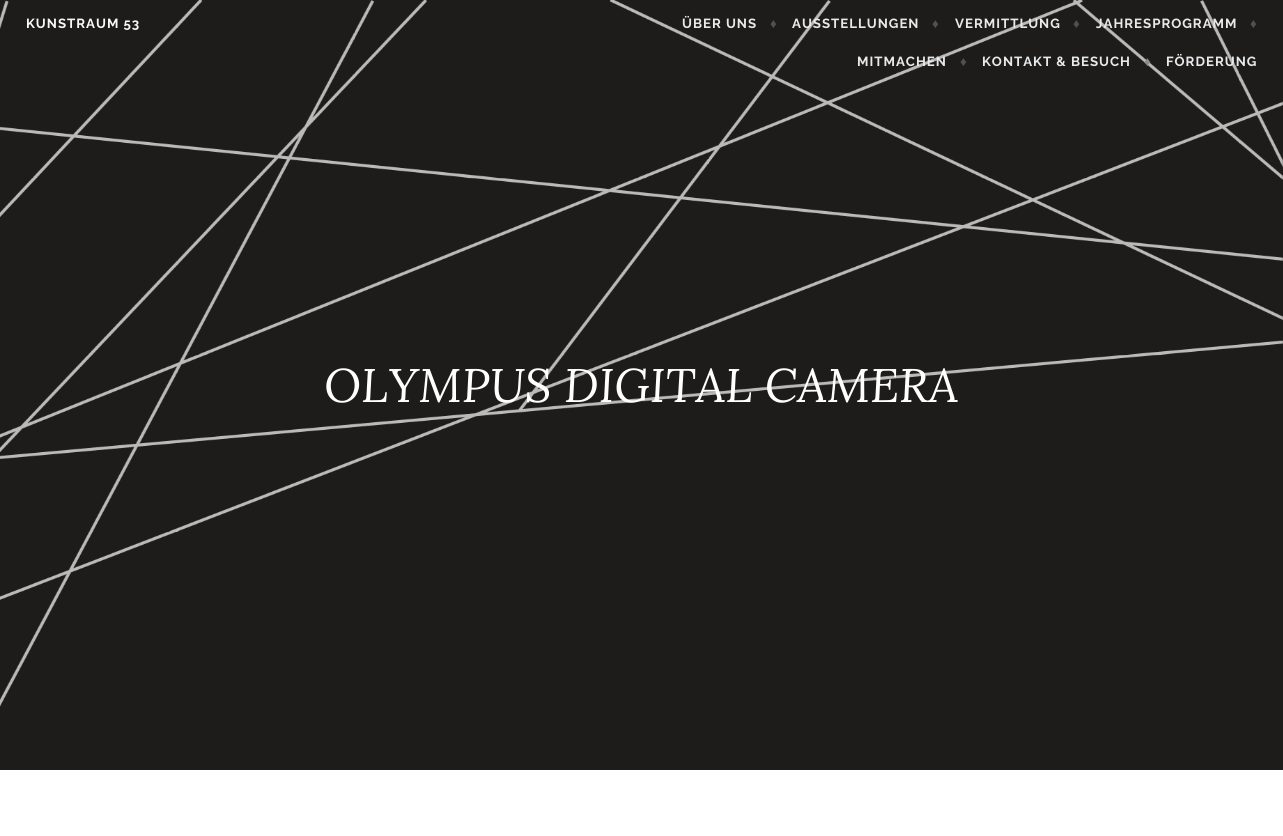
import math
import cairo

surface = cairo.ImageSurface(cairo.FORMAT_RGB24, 1283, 836)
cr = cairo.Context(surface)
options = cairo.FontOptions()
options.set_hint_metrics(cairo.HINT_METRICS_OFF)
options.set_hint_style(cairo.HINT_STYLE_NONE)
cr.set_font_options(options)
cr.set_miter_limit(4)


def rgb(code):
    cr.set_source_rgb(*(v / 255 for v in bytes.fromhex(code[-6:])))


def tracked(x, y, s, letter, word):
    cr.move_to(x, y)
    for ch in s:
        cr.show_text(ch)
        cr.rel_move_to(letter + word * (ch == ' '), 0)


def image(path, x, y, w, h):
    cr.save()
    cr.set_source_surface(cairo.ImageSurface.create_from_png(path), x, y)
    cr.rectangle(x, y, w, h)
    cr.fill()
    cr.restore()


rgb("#ffffff")
cr.paint()
rgb("#1e1c1b")
cr.rectangle(0, 0, 1283, 770)
cr.fill()
image("img/1.png", 0, 0, 1283, 707)
cr.select_font_face("Raleway", cairo.FONT_SLANT_NORMAL, cairo.FONT_WEIGHT_BOLD)
cr.set_font_size(13.25)
rgb("#f9f7f8")
tracked(26, 28, "KUNSTRAUM 53", 1, 0)
rgb("#e8e9ea")
tracked(682, 28, "ÜBER UNS", 1, 0)
cr.select_font_face("Liberation Sans", cairo.FONT_SLANT_NORMAL, cairo.FONT_WEIGHT_BOLD)
rgb("#514f4f")
tracked(770, 28, "♦", 1, 0)
cr.select_font_face("Raleway", cairo.FONT_SLANT_NORMAL, cairo.FONT_WEIGHT_BOLD)
rgb("#e8e9ea")
tracked(792, 28, "AUSSTELLUNGEN", 1, 0)
cr.select_font_face("Liberation Sans", cairo.FONT_SLANT_NORMAL, cairo.FONT_WEIGHT_BOLD)
rgb("#514f4f")
tracked(932, 28, "♦", 1, 0)
cr.select_font_face("Raleway", cairo.FONT_SLANT_NORMAL, cairo.FONT_WEIGHT_BOLD)
rgb("#e8e9ea")
tracked(955, 28, "VERMITTLUNG", 1, 0)
cr.select_font_face("Liberation Sans", cairo.FONT_SLANT_NORMAL, cairo.FONT_WEIGHT_BOLD)
rgb("#514f4f")
tracked(1073, 28, "♦", 1, 0)
cr.select_font_face("Raleway", cairo.FONT_SLANT_NORMAL, cairo.FONT_WEIGHT_BOLD)
rgb("#e8e9ea")
tracked(1096, 28, "JAHRESPROGRAMM", 1, 0)
cr.select_font_face("Liberation Sans", cairo.FONT_SLANT_NORMAL, cairo.FONT_WEIGHT_BOLD)
rgb("#514f4f")
tracked(1250, 28, "♦", 1, 0)
cr.select_font_face("Raleway", cairo.FONT_SLANT_NORMAL, cairo.FONT_WEIGHT_BOLD)
rgb("#e8e9ea")
tracked(857, 66, "MITMACHEN", 1, 0)
cr.select_font_face("Liberation Sans", cairo.FONT_SLANT_NORMAL, cairo.FONT_WEIGHT_BOLD)
rgb("#514f4f")
tracked(960, 66, "♦", 1, 0)
cr.select_font_face("Raleway", cairo.FONT_SLANT_NORMAL, cairo.FONT_WEIGHT_BOLD)
rgb("#e8e9ea")
tracked(982, 66, "KONTAKT & BESUCH", 1, 0)
cr.select_font_face("Liberation Sans", cairo.FONT_SLANT_NORMAL, cairo.FONT_WEIGHT_BOLD)
rgb("#8b8b8a")
tracked(1144, 66, "♦", 1, 0)
cr.select_font_face("Raleway", cairo.FONT_SLANT_NORMAL, cairo.FONT_WEIGHT_BOLD)
rgb("#e8e9ea")
tracked(1166, 66, "FÖRDERUNG", 1, 0)
cr.select_font_face("Lora", cairo.FONT_SLANT_ITALIC)
cr.set_font_size(47.1)
rgb("#ffffff")
cr.move_to(324, 402)
cr.show_text("OLYMPUS DIGITAL CAMERA")
surface.write_to_png("page.png")
